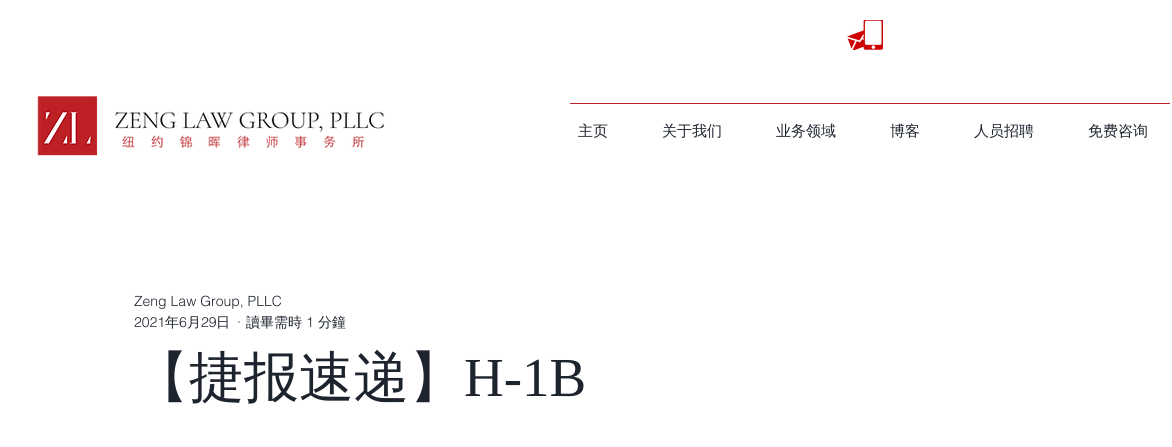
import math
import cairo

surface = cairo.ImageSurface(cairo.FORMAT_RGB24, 1172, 447)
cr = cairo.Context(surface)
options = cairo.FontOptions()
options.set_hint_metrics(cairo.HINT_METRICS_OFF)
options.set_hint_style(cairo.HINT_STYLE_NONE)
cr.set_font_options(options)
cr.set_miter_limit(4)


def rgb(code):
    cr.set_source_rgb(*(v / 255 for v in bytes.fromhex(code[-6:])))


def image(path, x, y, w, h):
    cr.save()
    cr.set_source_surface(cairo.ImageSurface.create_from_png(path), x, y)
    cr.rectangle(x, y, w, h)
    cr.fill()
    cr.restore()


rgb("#ffffff")
cr.paint()
image("img/1.png", 847, 20, 36, 30)
image("img/2.png", 37, 96, 349, 60)
rgb("#bd2025")
cr.rectangle(570, 103, 600, 1)
cr.fill()
cr.select_font_face("WenQuanYi Zen Hei Medium")
cr.set_font_size(15)
rgb("#1e242e")
for x, y, s in [
    (578, 136, "主页"),
    (662, 136, "关于我们"),
    (776, 136, "业务领域"),
    (890, 136, "博客"),
    (974, 136, "人员招聘"),
    (1088, 136, "免费咨询"),
]:
    cr.move_to(x, y)
    cr.show_text(s)
cr.select_font_face("helvetica Light")
cr.set_font_size(14)
cr.move_to(134, 306)
cr.show_text("Zeng Law Group, PLLC")
cr.move_to(134, 327)
cr.show_text("2021")
cr.select_font_face("WenQuanYi Zen Hei Medium")
cr.move_to(165, 327)
cr.show_text("年")
cr.select_font_face("helvetica Light")
cr.move_to(179, 327)
cr.show_text("6")
cr.select_font_face("WenQuanYi Zen Hei Medium")
cr.move_to(187, 327)
cr.show_text("月")
cr.select_font_face("helvetica Light")
cr.move_to(201, 327)
cr.show_text("29")
cr.select_font_face("WenQuanYi Zen Hei Medium")
cr.move_to(216, 327)
cr.show_text("日")
cr.select_font_face("helvetica Light")
cr.move_to(237, 327)
cr.show_text("·")
cr.select_font_face("WenQuanYi Zen Hei Medium")
cr.move_to(246, 327)
cr.show_text("讀畢需時")
cr.select_font_face("helvetica Light")
cr.move_to(306, 327)
cr.show_text("1")
cr.select_font_face("WenQuanYi Zen Hei Medium")
cr.move_to(318, 327)
cr.show_text("分鐘")
cr.set_font_size(55)
cr.move_to(134, 396)
cr.show_text("【捷报速递】")
cr.select_font_face("Liberation Serif")
cr.move_to(464, 396)
cr.show_text("H-1B")
surface.write_to_png("page.png")
